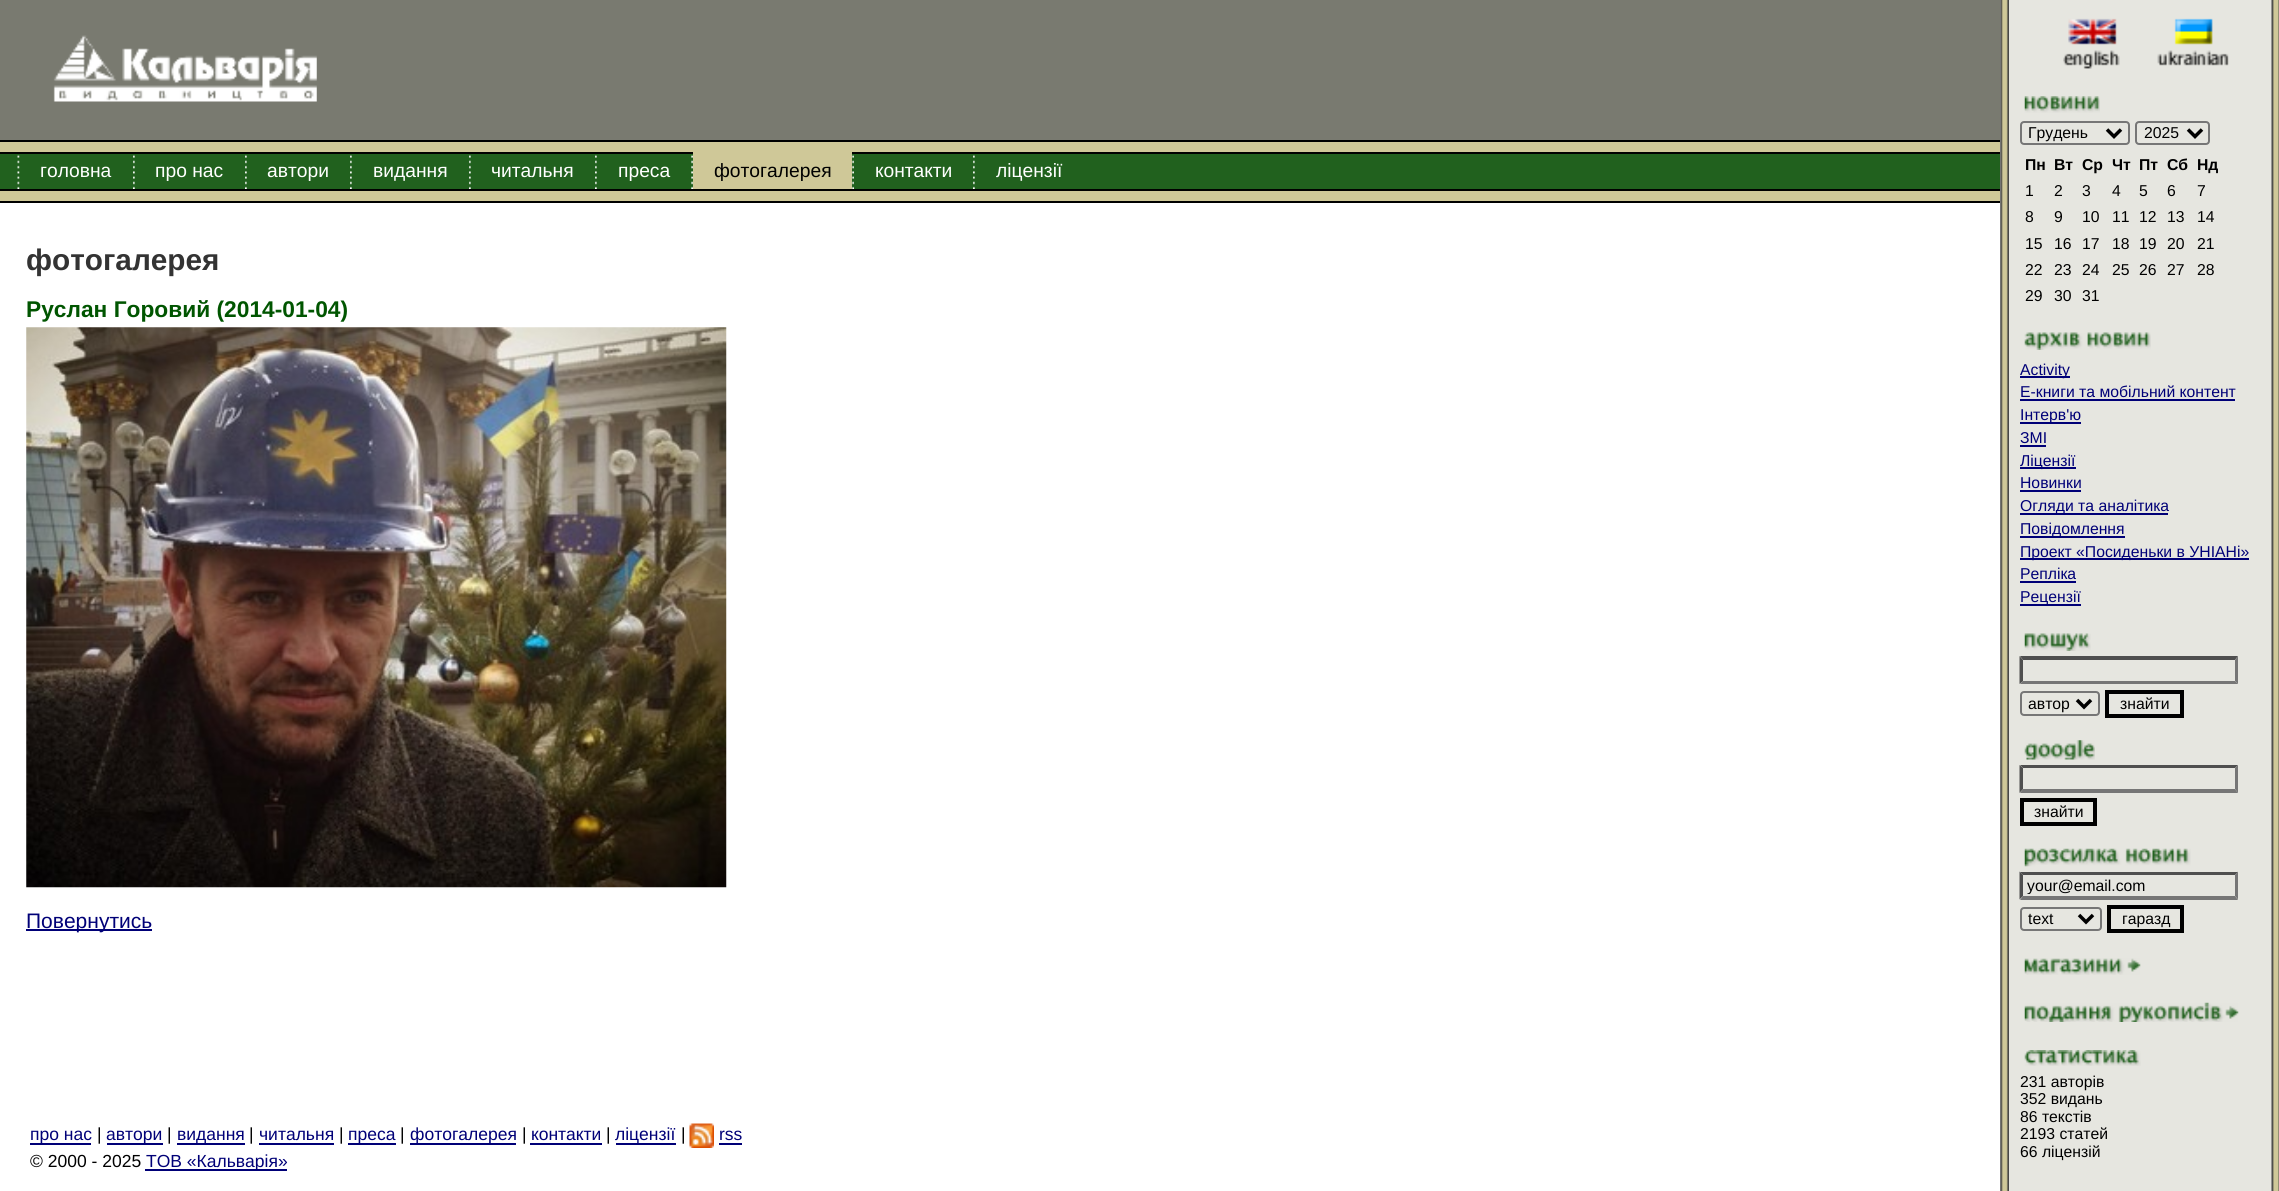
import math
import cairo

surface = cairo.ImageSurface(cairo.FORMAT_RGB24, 2279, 1191)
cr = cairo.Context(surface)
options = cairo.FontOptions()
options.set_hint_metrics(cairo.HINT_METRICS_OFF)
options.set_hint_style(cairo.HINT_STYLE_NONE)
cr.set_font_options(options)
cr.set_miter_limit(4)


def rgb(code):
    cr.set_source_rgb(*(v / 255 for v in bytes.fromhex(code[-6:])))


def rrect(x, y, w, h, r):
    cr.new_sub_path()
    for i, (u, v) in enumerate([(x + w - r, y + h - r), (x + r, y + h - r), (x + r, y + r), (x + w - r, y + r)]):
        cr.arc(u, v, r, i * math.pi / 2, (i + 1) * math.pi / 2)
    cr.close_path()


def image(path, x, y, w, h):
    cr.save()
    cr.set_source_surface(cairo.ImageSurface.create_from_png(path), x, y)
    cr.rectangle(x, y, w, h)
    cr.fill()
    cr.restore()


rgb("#ffffff")
cr.paint()
rgb("#797a70")
cr.rectangle(0, 0, 2000, 140)
cr.fill()
image("img/1.png", 53, 35, 264, 67)
for x, y, w, h, color in [
    (0, 140, 2000, 14, "#000000"),
    (0, 142, 2000, 10, "#cfc898"),
    (0, 154, 2000, 35, "#21611e"),
]:
    rgb(color)
    cr.rectangle(x, y, w, h)
    cr.fill()
image("img/2.png", 17, 155, 3, 34)
image("img/3.png", 133, 155, 2, 34)
image("img/3.png", 245, 155, 2, 34)
image("img/3.png", 350, 155, 2, 34)
image("img/3.png", 469, 155, 2, 34)
image("img/3.png", 595, 155, 2, 34)
image("img/4.png", 691, 155, 2, 34)
rgb("#cfc898")
cr.rectangle(693, 152, 159, 37)
cr.fill()
image("img/4.png", 852, 155, 2, 34)
image("img/3.png", 973, 155, 2, 34)
rgb("#000000")
cr.rectangle(0, 189, 2000, 14)
cr.fill()
rgb("#cfc898")
cr.rectangle(0, 191, 2000, 10)
cr.fill()
image("img/5.png", 26, 327, 701, 561)
rgb("#000077")
cr.rectangle(26, 929, 126, 2)
cr.fill()
image("img/6.png", 2000, 0, 9, 1191)
rgb("#e6e6e0")
cr.rectangle(2009, 0, 263, 1191)
cr.fill()
image("img/7.png", 2063, 18, 57, 51)
image("img/8.png", 2157, 18, 72, 48)
image("img/9.png", 2024, 96, 76, 17)
rrect(2021, 122, 108, 22, 3)
rgb("#767676")
cr.stroke()
cr.new_path()
cr.move_to(2107, 129.5)
cr.line_to(2114, 136.5)
cr.line_to(2121, 129.5)
rgb("#000000")
cr.set_line_width(3.5)
cr.stroke()
rrect(2136, 122, 73, 22, 3)
rgb("#767676")
cr.set_line_width(2)
cr.stroke()
cr.new_path()
cr.move_to(2188, 129.5)
cr.line_to(2195, 136.5)
cr.line_to(2202, 129.5)
rgb("#000000")
cr.set_line_width(3.5)
cr.stroke()
image("img/10.png", 2024, 332, 127, 18)
for x, y, w, h, color in [
    (2020, 376, 50, 2, "#000077"),
    (2020, 399, 215, 2, "#000077"),
    (2020, 422, 61, 2, "#000077"),
    (2020, 445, 26, 2, "#000077"),
    (2020, 467, 56, 2, "#000077"),
    (2020, 490, 61, 2, "#000077"),
    (2020, 513, 148, 2, "#000077"),
    (2020, 536, 105, 2, "#000077"),
    (2020, 558, 229, 2, "#000077"),
    (2020, 581, 56, 2, "#000077"),
    (2020, 604, 61, 2, "#000077"),
]:
    rgb(color)
    cr.rectangle(x, y, w, h)
    cr.fill()
image("img/11.png", 2024, 633, 67, 18)
rgb("#4f4f4f")
cr.new_path()
cr.move_to(2020, 656)
cr.line_to(2238, 656)
cr.line_to(2235, 660)
cr.line_to(2023, 660)
cr.close_path()
cr.fill()
rgb("#767676")
cr.new_path()
cr.move_to(2238, 656)
cr.line_to(2238, 684)
cr.line_to(2235, 681)
cr.line_to(2235, 660)
cr.close_path()
cr.fill()
cr.new_path()
cr.move_to(2238, 684)
cr.line_to(2020, 684)
cr.line_to(2023, 681)
cr.line_to(2235, 681)
cr.close_path()
cr.fill()
rgb("#4f4f4f")
cr.new_path()
cr.move_to(2019.5, 684)
cr.line_to(2019.5, 656)
cr.line_to(2023, 660)
cr.line_to(2023, 681)
cr.close_path()
cr.fill()
rrect(2021, 692, 78, 23, 3)
rgb("#767676")
cr.set_line_width(2)
cr.stroke()
cr.new_path()
cr.move_to(2077, 700)
cr.line_to(2084, 707)
cr.line_to(2091, 700)
rgb("#000000")
cr.set_line_width(3.5)
cr.stroke()
cr.rectangle(2107, 692, 75, 24)
cr.set_line_width(4)
cr.stroke()
image("img/12.png", 2024, 740, 71, 20)
rgb("#4f4f4f")
cr.new_path()
cr.move_to(2020, 765)
cr.line_to(2238, 765)
cr.line_to(2235, 768)
cr.line_to(2023, 768)
cr.close_path()
cr.fill()
rgb("#767676")
cr.new_path()
cr.move_to(2238, 765)
cr.line_to(2238, 793)
cr.line_to(2235, 789)
cr.line_to(2235, 768)
cr.close_path()
cr.fill()
cr.new_path()
cr.move_to(2238, 793)
cr.line_to(2020, 793)
cr.line_to(2023, 789)
cr.line_to(2235, 789)
cr.close_path()
cr.fill()
rgb("#4f4f4f")
cr.new_path()
cr.move_to(2019.5, 793)
cr.line_to(2019.5, 765)
cr.line_to(2023, 768)
cr.line_to(2023, 789)
cr.close_path()
cr.fill()
cr.rectangle(2022, 800, 73, 24)
rgb("#000000")
cr.stroke()
image("img/13.png", 2024, 848, 167, 19)
rgb("#4f4f4f")
cr.new_path()
cr.move_to(2020, 872)
cr.line_to(2238, 872)
cr.line_to(2235, 875)
cr.line_to(2023, 875)
cr.close_path()
cr.fill()
rgb("#767676")
cr.new_path()
cr.move_to(2238, 871.5)
cr.line_to(2238, 899.5)
cr.line_to(2235, 896)
cr.line_to(2235, 875)
cr.close_path()
cr.fill()
cr.new_path()
cr.move_to(2238, 900)
cr.line_to(2020, 900)
cr.line_to(2023, 896)
cr.line_to(2235, 896)
cr.close_path()
cr.fill()
rgb("#4f4f4f")
cr.new_path()
cr.move_to(2019.5, 899.5)
cr.line_to(2019.5, 871.5)
cr.line_to(2023, 875)
cr.line_to(2023, 896)
cr.close_path()
cr.fill()
rrect(2021, 908, 80, 22, 3)
rgb("#767676")
cr.set_line_width(2)
cr.stroke()
cr.new_path()
cr.move_to(2079, 915)
cr.line_to(2086, 922)
cr.line_to(2093, 915)
rgb("#000000")
cr.set_line_width(3.5)
cr.stroke()
cr.rectangle(2109, 907, 73, 24)
cr.set_line_width(4)
cr.stroke()
image("img/14.png", 2024, 958, 117, 17)
image("img/15.png", 2024, 1002, 215, 20)
image("img/16.png", 2024, 1050, 117, 16)
image("img/17.png", 2271, 0, 8, 1191)
for x, y, w, h, color in [
    (30, 1143, 61, 2, "#000077"),
    (107, 1143, 56, 2, "#000077"),
    (177, 1143, 68, 2, "#000077"),
    (259, 1143, 75, 2, "#000077"),
    (348, 1143, 48, 2, "#000077"),
    (410, 1143, 106, 2, "#000077"),
    (530, 1143, 72, 2, "#000077"),
    (616, 1143, 60, 2, "#000077"),
]:
    rgb(color)
    cr.rectangle(x, y, w, h)
    cr.fill()
image("img/18.png", 689, 1123, 25, 25)
cr.rectangle(719, 1143, 23, 2)
cr.fill()
cr.rectangle(145, 1169, 142, 2)
cr.fill()
cr.select_font_face("Liberation Sans")
cr.set_font_size(19.25)
rgb("#ffffff")
for x, y, s in [
    (40, 177, "головна"),
    (155, 177, "про нас"),
    (267, 177, "автори"),
    (373, 177, "видання"),
    (491, 177, "читальня"),
    (618, 177, "преса"),
]:
    cr.move_to(x, y)
    cr.show_text(s)
rgb("#000000")
cr.move_to(714, 177)
cr.show_text("фотогалерея")
rgb("#ffffff")
cr.move_to(875, 177)
cr.show_text("контакти")
cr.move_to(996, 177)
cr.show_text("ліцензії")
cr.select_font_face("Liberation Sans", cairo.FONT_SLANT_NORMAL, cairo.FONT_WEIGHT_BOLD)
cr.set_font_size(29.75)
rgb("#333333")
cr.move_to(26, 270)
cr.show_text("фотогалерея")
cr.set_font_size(22.75)
rgb("#005500")
cr.move_to(26, 317)
cr.show_text("Руслан Горовий (2014-01-04)")
cr.select_font_face("Liberation Sans")
cr.set_font_size(21)
rgb("#000077")
cr.move_to(26, 928)
cr.show_text("Повернутись")
cr.set_font_size(15.75)
rgb("#000000")
cr.move_to(2028, 138)
cr.show_text("Грудень")
cr.move_to(2144, 138)
cr.show_text("2025")
cr.select_font_face("Liberation Sans", cairo.FONT_SLANT_NORMAL, cairo.FONT_WEIGHT_BOLD)
for x, y, s in [
    (2025, 170, "Пн"),
    (2054, 170, "Вт"),
    (2082, 170, "Ср"),
    (2112, 170, "Чт"),
    (2139, 170, "Пт"),
    (2167, 170, "Сб"),
    (2197, 170, "Нд"),
]:
    cr.move_to(x, y)
    cr.show_text(s)
cr.select_font_face("Liberation Sans")
for x, y, s in [
    (2025, 196, "1"),
    (2054, 196, "2"),
    (2082, 196, "3"),
    (2112, 196, "4"),
    (2139, 196, "5"),
    (2167, 196, "6"),
    (2197, 196, "7"),
    (2025, 222, "8"),
    (2054, 222, "9"),
    (2082, 222, "10"),
    (2112, 222, "11"),
    (2139, 222, "12"),
    (2167, 222, "13"),
    (2197, 222, "14"),
    (2025, 249, "15"),
    (2054, 249, "16"),
    (2082, 249, "17"),
    (2112, 249, "18"),
    (2139, 249, "19"),
    (2167, 249, "20"),
    (2197, 249, "21"),
    (2025, 275, "22"),
    (2054, 275, "23"),
    (2082, 275, "24"),
    (2112, 275, "25"),
    (2139, 275, "26"),
    (2167, 275, "27"),
    (2197, 275, "28"),
    (2025, 301, "29"),
    (2054, 301, "30"),
    (2082, 301, "31"),
]:
    cr.move_to(x, y)
    cr.show_text(s)
rgb("#000077")
for x, y, s in [
    (2020, 375, "Activity"),
    (2020, 397, "E-книги та мобільний контент"),
    (2020, 420, "Інтерв'ю"),
    (2020, 443, "ЗМІ"),
    (2020, 466, "Ліцензії"),
    (2020, 488, "Новинки"),
    (2020, 511, "Огляди та аналітика"),
    (2020, 534, "Повідомлення"),
    (2020, 557, "Проект «Посиденьки в УНІАНі»"),
    (2020, 579, "Репліка"),
    (2020, 602, "Рецензії"),
]:
    cr.move_to(x, y)
    cr.show_text(s)
rgb("#000000")
for x, y, s in [
    (2028, 709, "автор"),
    (2120, 709, "знайти"),
    (2034, 817, "знайти"),
]:
    cr.move_to(x, y)
    cr.show_text(s)
cr.save()
cr.rectangle(2027, 877, 204, 17)
cr.clip()
cr.move_to(2027, 891)
cr.show_text("your@email.com")
cr.restore()
for x, y, s in [
    (2028, 924, "text"),
    (2122, 924, "гаразд"),
    (2020, 1087, "231 авторів"),
    (2020, 1104, "352 видань"),
    (2020, 1122, "86 текстів"),
    (2020, 1139, "2193 статей"),
    (2020, 1157, "66 ліцензій"),
]:
    cr.move_to(x, y)
    cr.show_text(s)
cr.set_font_size(17.5)
rgb("#000077")
cr.move_to(30, 1140)
cr.show_text("про нас")
rgb("#000000")
cr.move_to(97, 1140)
cr.show_text("|")
rgb("#000077")
cr.move_to(106, 1140)
cr.show_text("автори")
rgb("#000000")
cr.move_to(167, 1140)
cr.show_text("|")
rgb("#000077")
cr.move_to(177, 1140)
cr.show_text("видання")
rgb("#000000")
cr.move_to(249, 1140)
cr.show_text("|")
rgb("#000077")
cr.move_to(259, 1140)
cr.show_text("читальня")
rgb("#000000")
cr.move_to(339, 1140)
cr.show_text("|")
rgb("#000077")
cr.move_to(348, 1140)
cr.show_text("преса")
rgb("#000000")
cr.move_to(400, 1140)
cr.show_text("|")
rgb("#000077")
cr.move_to(410, 1140)
cr.show_text("фотогалерея")
rgb("#000000")
cr.move_to(522, 1140)
cr.show_text("|")
rgb("#000077")
cr.move_to(531, 1140)
cr.show_text("контакти")
rgb("#000000")
cr.move_to(606, 1140)
cr.show_text("|")
rgb("#000077")
cr.move_to(615, 1140)
cr.show_text("ліцензії")
rgb("#000000")
cr.move_to(681, 1140)
cr.show_text("|")
rgb("#000077")
cr.move_to(719, 1140)
cr.show_text("rss")
rgb("#000000")
cr.move_to(30, 1167)
cr.show_text("© 2000 - 2025")
rgb("#000077")
cr.move_to(146, 1167)
cr.show_text("ТОВ «Кальварія»")
surface.write_to_png("page.png")
